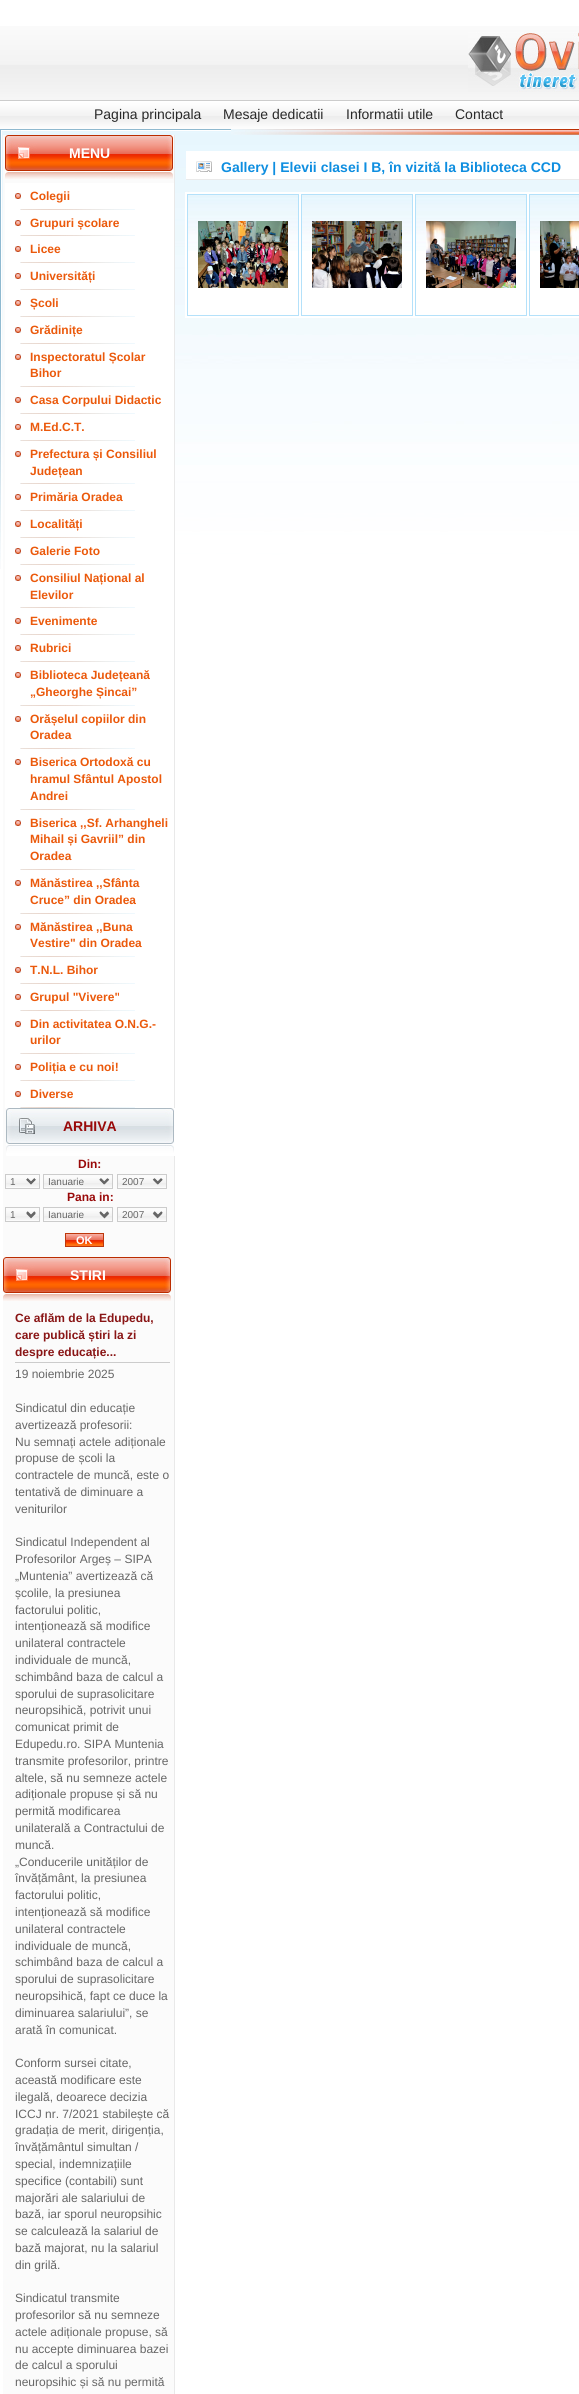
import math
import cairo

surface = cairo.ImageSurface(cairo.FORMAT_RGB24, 579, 2394)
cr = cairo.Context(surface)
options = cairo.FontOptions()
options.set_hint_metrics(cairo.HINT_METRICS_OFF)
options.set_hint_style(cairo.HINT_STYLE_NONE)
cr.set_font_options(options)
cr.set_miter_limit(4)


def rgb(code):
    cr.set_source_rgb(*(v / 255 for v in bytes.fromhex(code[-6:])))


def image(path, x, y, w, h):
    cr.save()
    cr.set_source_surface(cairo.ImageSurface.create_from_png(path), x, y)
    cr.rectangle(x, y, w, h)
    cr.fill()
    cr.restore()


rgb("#ffffff")
cr.paint()
image("img/1.png", 0, 26, 579, 103)
image("img/2.png", 0, 129, 579, 440)
image("img/3.png", 468, 32, 111, 60)
image("img/4.png", 231, 129, 348, 6)
rgb("#fbfbfb")
cr.rectangle(3, 135, 171, 2259)
cr.fill()
rgb("#e9e9e9")
cr.rectangle(174, 135, 1, 2259)
cr.fill()
image("img/5.png", 5, 135, 168, 44)
rgb("#ffffff")
cr.rectangle(5, 183, 169, 925)
cr.fill()
image("img/6.png", 20, 209, 115, 1)
image("img/7.png", 15, 193, 6, 6)
image("img/6.png", 20, 235, 115, 1)
image("img/7.png", 15, 220, 6, 6)
image("img/6.png", 20, 262, 115, 1)
image("img/7.png", 15, 246, 6, 6)
image("img/6.png", 20, 289, 115, 1)
image("img/7.png", 15, 273, 6, 6)
image("img/6.png", 20, 316, 115, 1)
image("img/7.png", 15, 300, 6, 6)
image("img/6.png", 20, 343, 115, 1)
image("img/7.png", 15, 327, 6, 6)
image("img/6.png", 20, 386, 115, 1)
image("img/7.png", 15, 354, 6, 6)
image("img/6.png", 20, 413, 115, 1)
image("img/7.png", 15, 397, 6, 6)
image("img/6.png", 20, 440, 115, 1)
image("img/7.png", 15, 424, 6, 6)
image("img/6.png", 20, 483, 115, 1)
image("img/7.png", 15, 451, 6, 6)
image("img/6.png", 20, 510, 115, 1)
image("img/7.png", 15, 494, 6, 6)
image("img/6.png", 20, 537, 115, 1)
image("img/7.png", 15, 521, 6, 6)
image("img/6.png", 20, 564, 115, 1)
image("img/7.png", 15, 548, 6, 6)
image("img/6.png", 20, 607, 115, 1)
image("img/7.png", 15, 575, 6, 6)
image("img/6.png", 20, 634, 115, 1)
image("img/7.png", 15, 618, 6, 6)
image("img/6.png", 20, 661, 115, 1)
image("img/7.png", 15, 645, 6, 6)
image("img/6.png", 20, 705, 115, 1)
image("img/7.png", 15, 672, 6, 6)
image("img/6.png", 20, 748, 115, 1)
image("img/7.png", 15, 716, 6, 6)
image("img/6.png", 20, 809, 115, 1)
image("img/7.png", 15, 759, 6, 6)
image("img/6.png", 20, 869, 115, 1)
image("img/7.png", 15, 820, 6, 6)
image("img/6.png", 20, 913, 115, 1)
image("img/7.png", 15, 880, 6, 6)
image("img/6.png", 20, 956, 115, 1)
image("img/7.png", 15, 924, 6, 6)
image("img/6.png", 20, 983, 115, 1)
image("img/7.png", 15, 967, 6, 6)
image("img/6.png", 20, 1010, 115, 1)
image("img/7.png", 15, 994, 6, 6)
image("img/6.png", 20, 1053, 115, 1)
image("img/7.png", 15, 1021, 6, 6)
image("img/6.png", 20, 1080, 115, 1)
image("img/7.png", 15, 1064, 6, 6)
image("img/6.png", 20, 1107, 115, 1)
image("img/7.png", 15, 1091, 6, 6)
image("img/8.png", 6, 1108, 169, 48)
image("img/9.png", 6, 1178, 33, 9)
cr.rectangle(5.5, 1174.5, 34, 14)
rgb("#cccccc")
cr.set_line_width(1)
cr.stroke()
cr.new_path()
cr.move_to(27, 1179)
cr.line_to(31, 1183)
cr.line_to(35, 1179)
rgb("#666666")
cr.set_line_width(2)
cr.stroke()
image("img/10.png", 44, 1178, 68, 9)
cr.rectangle(43.5, 1174.5, 69, 14)
rgb("#cccccc")
cr.set_line_width(1)
cr.stroke()
cr.new_path()
cr.move_to(100.5, 1179)
cr.line_to(104.5, 1183)
cr.line_to(108.5, 1179)
rgb("#666666")
cr.set_line_width(2)
cr.stroke()
image("img/11.png", 118, 1178, 48, 9)
cr.rectangle(117.5, 1174.5, 49, 14)
rgb("#cccccc")
cr.set_line_width(1)
cr.stroke()
cr.new_path()
cr.move_to(153.5, 1179)
cr.line_to(157.5, 1183)
cr.line_to(161.5, 1179)
rgb("#666666")
cr.set_line_width(2)
cr.stroke()
image("img/9.png", 6, 1211, 33, 9)
cr.rectangle(5.5, 1207.5, 34, 14)
rgb("#cccccc")
cr.set_line_width(1)
cr.stroke()
cr.new_path()
cr.move_to(27, 1213)
cr.line_to(31, 1217)
cr.line_to(35, 1213)
rgb("#666666")
cr.set_line_width(2)
cr.stroke()
image("img/10.png", 44, 1211, 68, 9)
cr.rectangle(43.5, 1207.5, 69, 14)
rgb("#cccccc")
cr.set_line_width(1)
cr.stroke()
cr.new_path()
cr.move_to(100.5, 1213)
cr.line_to(104.5, 1217)
cr.line_to(108.5, 1213)
rgb("#666666")
cr.set_line_width(2)
cr.stroke()
image("img/11.png", 118, 1211, 48, 9)
cr.rectangle(117.5, 1207.5, 49, 14)
rgb("#cccccc")
cr.set_line_width(1)
cr.stroke()
cr.new_path()
cr.move_to(153.5, 1213)
cr.line_to(157.5, 1217)
cr.line_to(161.5, 1213)
rgb("#666666")
cr.set_line_width(2)
cr.stroke()
image("img/12.png", 66, 1234, 37, 12)
cr.rectangle(65.5, 1233.5, 38, 13)
rgb("#be370c")
cr.set_line_width(1)
cr.stroke()
image("img/5.png", 3, 1257, 168, 44)
rgb("#cccccc")
cr.rectangle(15, 1362, 155, 1)
cr.fill()
rgb("#ffffff")
cr.rectangle(186, 151, 393, 28)
cr.fill()
image("img/13.png", 196, 161, 16, 11)
rgb("#eaeaea")
cr.rectangle(186, 179, 393, 1)
cr.fill()
rgb("#ffffff")
cr.rectangle(185, 192, 394, 126)
cr.fill()
image("img/14.png", 188, 195, 110, 56)
cr.rectangle(187.5, 194.5, 111, 121)
rgb("#b4e1fa")
cr.stroke()
image("img/15.png", 198, 221, 90, 67)
image("img/14.png", 302, 195, 110, 56)
cr.rectangle(301.5, 194.5, 111, 121)
cr.stroke()
image("img/16.png", 312, 221, 90, 67)
image("img/14.png", 416, 195, 110, 56)
cr.rectangle(415.5, 194.5, 111, 121)
cr.stroke()
image("img/17.png", 426, 221, 90, 67)
image("img/18.png", 530, 195, 49, 56)
cr.rectangle(529.5, 194.5, 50, 121)
cr.stroke()
image("img/19.png", 540, 221, 39, 67)
cr.select_font_face("Liberation Sans")
cr.set_font_size(14)
rgb("#292929")
for x, y, s in [
    (94, 119, "Pagina principala"),
    (223, 119, "Mesaje dedicatii"),
    (346, 119, "Informatii utile"),
    (455, 119, "Contact"),
]:
    cr.move_to(x, y)
    cr.show_text(s)
cr.select_font_face("Liberation Sans", cairo.FONT_SLANT_NORMAL, cairo.FONT_WEIGHT_BOLD)
rgb("#ffffff")
cr.move_to(69, 158)
cr.show_text("MENU")
cr.set_font_size(12)
rgb("#eb590b")
for x, y, s in [
    (30, 200, "Colegii"),
    (30, 227, "Grupuri școlare"),
    (30, 253, "Licee"),
    (30, 280, "Universități"),
    (30, 307, "Școli"),
    (30, 334, "Grădinițe"),
    (30, 361, "Inspectoratul Școlar"),
    (30, 377, "Bihor"),
    (30, 404, "Casa Corpului Didactic"),
    (30, 431, "M.Ed.C.T."),
    (30, 458, "Prefectura și Consiliul"),
    (30, 475, "Județean"),
    (30, 501, "Primăria Oradea"),
    (30, 528, "Localități"),
    (30, 555, "Galerie Foto"),
    (30, 582, "Consiliul Național al"),
    (30, 599, "Elevilor"),
    (30, 625, "Evenimente"),
    (30, 652, "Rubrici"),
    (30, 679, "Biblioteca Județeană"),
    (30, 696, "„Gheorghe Șincai”"),
    (30, 723, "Orășelul copiilor din"),
    (30, 739, "Oradea"),
    (30, 766, "Biserica Ortodoxă cu"),
    (30, 783, "hramul Sfântul Apostol"),
    (30, 800, "Andrei"),
    (30, 827, "Biserica ,,Sf. Arhangheli"),
    (30, 843, "Mihail și Gavriil” din"),
    (30, 860, "Oradea"),
    (30, 887, "Mănăstirea ,,Sfânta"),
    (30, 904, "Cruce” din Oradea"),
    (30, 931, "Mănăstirea ,,Buna"),
    (30, 947, "Vestire\" din Oradea"),
    (30, 974, "T.N.L. Bihor"),
    (30, 1001, "Grupul \"Vivere\""),
    (30, 1028, "Din activitatea O.N.G.-"),
    (30, 1044, "urilor"),
    (30, 1071, "Poliția e cu noi!"),
    (30, 1098, "Diverse"),
]:
    cr.move_to(x, y)
    cr.show_text(s)
cr.set_font_size(14)
rgb("#990909")
cr.move_to(63, 1131)
cr.show_text("ARHIVA")
cr.set_font_size(12)
cr.move_to(78, 1168)
cr.show_text("Din:")
cr.select_font_face("Liberation Sans")
cr.set_font_size(10)
rgb("#666666")
for x, y, s in [
    (10, 1185, "1"),
    (48, 1185, "Ianuarie"),
    (122, 1185, "2007"),
]:
    cr.move_to(x, y)
    cr.show_text(s)
cr.select_font_face("Liberation Sans", cairo.FONT_SLANT_NORMAL, cairo.FONT_WEIGHT_BOLD)
cr.set_font_size(12)
rgb("#990909")
cr.move_to(67, 1201)
cr.show_text("Pana in:")
cr.select_font_face("Liberation Sans")
cr.set_font_size(10)
rgb("#666666")
for x, y, s in [
    (10, 1218, "1"),
    (48, 1218, "Ianuarie"),
    (122, 1218, "2007"),
]:
    cr.move_to(x, y)
    cr.show_text(s)
cr.select_font_face("Liberation Sans", cairo.FONT_SLANT_NORMAL, cairo.FONT_WEIGHT_BOLD)
cr.set_font_size(11)
rgb("#ffffff")
cr.move_to(76, 1244)
cr.show_text("OK")
cr.set_font_size(14)
cr.move_to(70, 1280)
cr.show_text("STIRI")
cr.set_font_size(12)
rgb("#891515")
for x, y, s in [
    (15, 1322, "Ce aflăm de la Edupedu,"),
    (15, 1339, "care publică știri la zi"),
    (15, 1356, "despre educație..."),
]:
    cr.move_to(x, y)
    cr.show_text(s)
cr.select_font_face("Liberation Sans")
rgb("#666666")
for x, y, s in [
    (15, 1378, "19 noiembrie 2025"),
    (15, 1412, "Sindicatul din educație"),
    (15, 1429, "avertizează profesorii:"),
    (15, 1446, "Nu semnați actele adiționale"),
    (15, 1462, "propuse de școli la"),
    (15, 1479, "contractele de muncă, este o"),
    (15, 1496, "tentativă de diminuare a"),
    (15, 1513, "veniturilor"),
    (15, 1546, "Sindicatul Independent al"),
    (15, 1563, "Profesorilor Argeș – SIPA"),
    (15, 1580, "„Muntenia” avertizează că"),
    (15, 1597, "școlile, la presiunea"),
    (15, 1614, "factorului politic,"),
    (15, 1630, "intenționează să modifice"),
    (15, 1647, "unilateral contractele"),
    (15, 1664, "individuale de muncă,"),
    (15, 1681, "schimbând baza de calcul a"),
    (15, 1698, "sporului de suprasolicitare"),
    (15, 1714, "neuropsihică, potrivit unui"),
    (15, 1731, "comunicat primit de"),
    (15, 1748, "Edupedu.ro. SIPA Muntenia"),
    (15, 1765, "transmite profesorilor, printre"),
    (15, 1782, "altele, să nu semneze actele"),
    (15, 1798, "adiționale propuse și să nu"),
    (15, 1815, "permită modificarea"),
    (15, 1832, "unilaterală a Contractului de"),
    (15, 1849, "muncă."),
    (15, 1866, "„Conducerile unităților de"),
    (15, 1882, "învățământ, la presiunea"),
    (15, 1899, "factorului politic,"),
    (15, 1916, "intenționează să modifice"),
    (15, 1933, "unilateral contractele"),
    (15, 1950, "individuale de muncă,"),
    (15, 1966, "schimbând baza de calcul a"),
    (15, 1983, "sporului de suprasolicitare"),
    (15, 2000, "neuropsihică, fapt ce duce la"),
    (15, 2017, "diminuarea salariului”, se"),
    (15, 2034, "arată în comunicat."),
    (15, 2067, "Conform sursei citate,"),
    (15, 2084, "această modificare este"),
    (15, 2101, "ilegală, deoarece decizia"),
    (15, 2118, "ICCJ nr. 7/2021 stabilește că"),
    (15, 2134, "gradația de merit, dirigenția,"),
    (15, 2151, "învățământul simultan /"),
    (15, 2168, "special, indemnizațiile"),
    (15, 2185, "specifice (contabili) sunt"),
    (15, 2202, "majorări ale salariului de"),
    (15, 2218, "bază, iar sporul neuropsihic"),
    (15, 2235, "se calculează la salariul de"),
    (15, 2252, "bază majorat, nu la salariul"),
    (15, 2269, "din grilă."),
    (15, 2302, "Sindicatul transmite"),
    (15, 2319, "profesorilor să nu semneze"),
    (15, 2336, "actele adiționale propuse, să"),
    (15, 2353, "nu accepte diminuarea bazei"),
    (15, 2369, "de calcul a sporului"),
    (15, 2386, "neuropsihic și să nu permită"),
]:
    cr.move_to(x, y)
    cr.show_text(s)
cr.select_font_face("Liberation Sans", cairo.FONT_SLANT_NORMAL, cairo.FONT_WEIGHT_BOLD)
cr.set_font_size(14)
rgb("#0e8ee0")
cr.move_to(221, 172)
cr.show_text("Gallery | Elevii clasei I B, în vizită la Biblioteca CCD")
surface.write_to_png("page.png")
